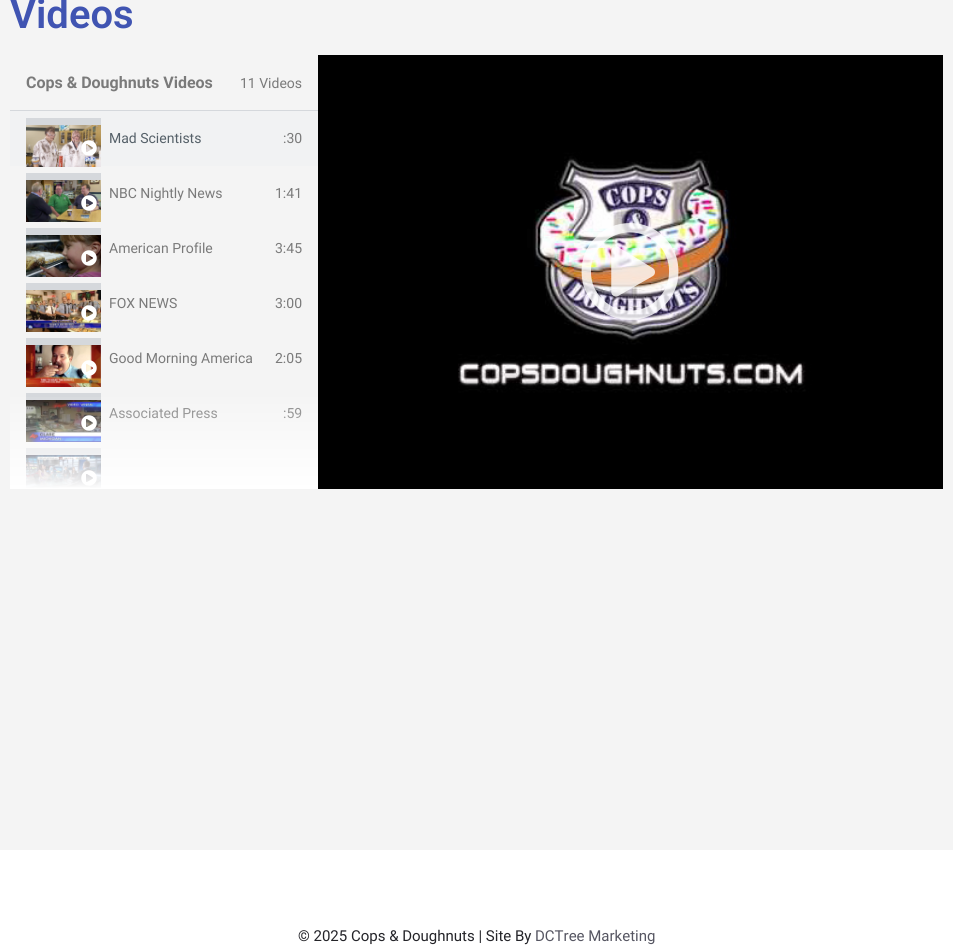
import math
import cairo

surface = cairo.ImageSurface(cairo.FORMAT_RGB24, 953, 945)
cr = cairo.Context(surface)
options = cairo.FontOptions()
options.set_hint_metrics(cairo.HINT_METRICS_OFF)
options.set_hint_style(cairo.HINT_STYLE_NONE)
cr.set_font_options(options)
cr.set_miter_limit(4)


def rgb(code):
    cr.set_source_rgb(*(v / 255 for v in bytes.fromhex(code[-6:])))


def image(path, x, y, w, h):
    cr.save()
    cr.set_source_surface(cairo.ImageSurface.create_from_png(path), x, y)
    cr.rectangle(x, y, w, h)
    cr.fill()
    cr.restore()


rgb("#f4f4f4")
cr.paint()
for x, y, w, h, color in [
    (10, 110, 308, 1, "#d5d8dc"),
    (10, 111, 308, 55, "#f1f2f3"),
    (26, 118, 75, 7, "#d5d8dc"),
]:
    rgb(color)
    cr.rectangle(x, y, w, h)
    cr.fill()
image("img/1.png", 26, 125, 75, 42)
image("img/2.png", 81, 140, 16, 16)
cr.rectangle(26, 173, 75, 7)
cr.fill()
image("img/3.png", 26, 180, 75, 42)
image("img/4.png", 81, 195, 16, 16)
cr.rectangle(26, 228, 75, 7)
cr.fill()
image("img/5.png", 26, 235, 75, 42)
image("img/6.png", 81, 250, 16, 16)
cr.rectangle(26, 283, 75, 7)
cr.fill()
image("img/7.png", 26, 290, 75, 42)
image("img/8.png", 81, 305, 16, 16)
cr.rectangle(26, 338, 75, 7)
cr.fill()
image("img/9.png", 26, 345, 75, 42)
image("img/10.png", 81, 360, 16, 16)
cr.rectangle(26, 393, 75, 7)
cr.fill()
image("img/11.png", 26, 400, 75, 42)
image("img/12.png", 81, 415, 16, 16)
cr.rectangle(26, 448, 75, 7)
cr.fill()
image("img/13.png", 26, 455, 75, 33)
image("img/14.png", 81, 470, 16, 16)
rgb("#000000")
cr.rectangle(318, 469, 625, 20)
cr.fill()
image("img/15.png", 318, 55, 625, 414)
image("img/16.png", 581, 223, 98, 97)
rgb("#ffffff")
cr.rectangle(0, 850, 953, 95)
cr.fill()
cr.select_font_face("Roboto SemiBold")
cr.set_font_size(40)
rgb("#4054b2")
cr.move_to(10, 28)
cr.show_text("Videos")
cr.select_font_face("Roboto", cairo.FONT_SLANT_NORMAL, cairo.FONT_WEIGHT_BOLD)
cr.set_font_size(16)
rgb("#7a7a7a")
cr.move_to(26, 88)
cr.show_text("Cops & Doughnuts Videos")
cr.select_font_face("Roboto")
cr.set_font_size(14)
cr.move_to(240, 88)
cr.show_text("11 Videos")
rgb("#556068")
cr.move_to(109, 143)
cr.show_text("Mad Scientists")
rgb("#7a7a7a")
for x, y, s in [
    (283, 143, ":30"),
    (109, 198, "NBC Nightly News"),
    (275, 198, "1:41"),
    (109, 253, "American Profile"),
    (275, 253, "3:45"),
    (109, 308, "FOX NEWS"),
    (275, 308, "3:00"),
    (109, 363, "Good Morning America"),
    (275, 363, "2:05"),
    (109, 418, "Associated Press"),
    (283, 418, ":59"),
]:
    cr.move_to(x, y)
    cr.show_text(s)
gradient = cairo.LinearGradient(164, 391, 164, 489)
gradient.add_color_stop_rgba(0, 1, 1, 1, 0)
gradient.add_color_stop_rgba(1, 1, 1, 1, 1)
cr.set_source(gradient)
cr.rectangle(10, 397, 308, 92)
cr.fill()
cr.set_font_size(15)
rgb("#242429")
cr.move_to(298, 941)
cr.show_text("© 2025 Cops & Doughnuts | Site By")
rgb("#565662")
cr.move_to(535, 941)
cr.show_text("DCTree Marketing")
surface.write_to_png("page.png")
